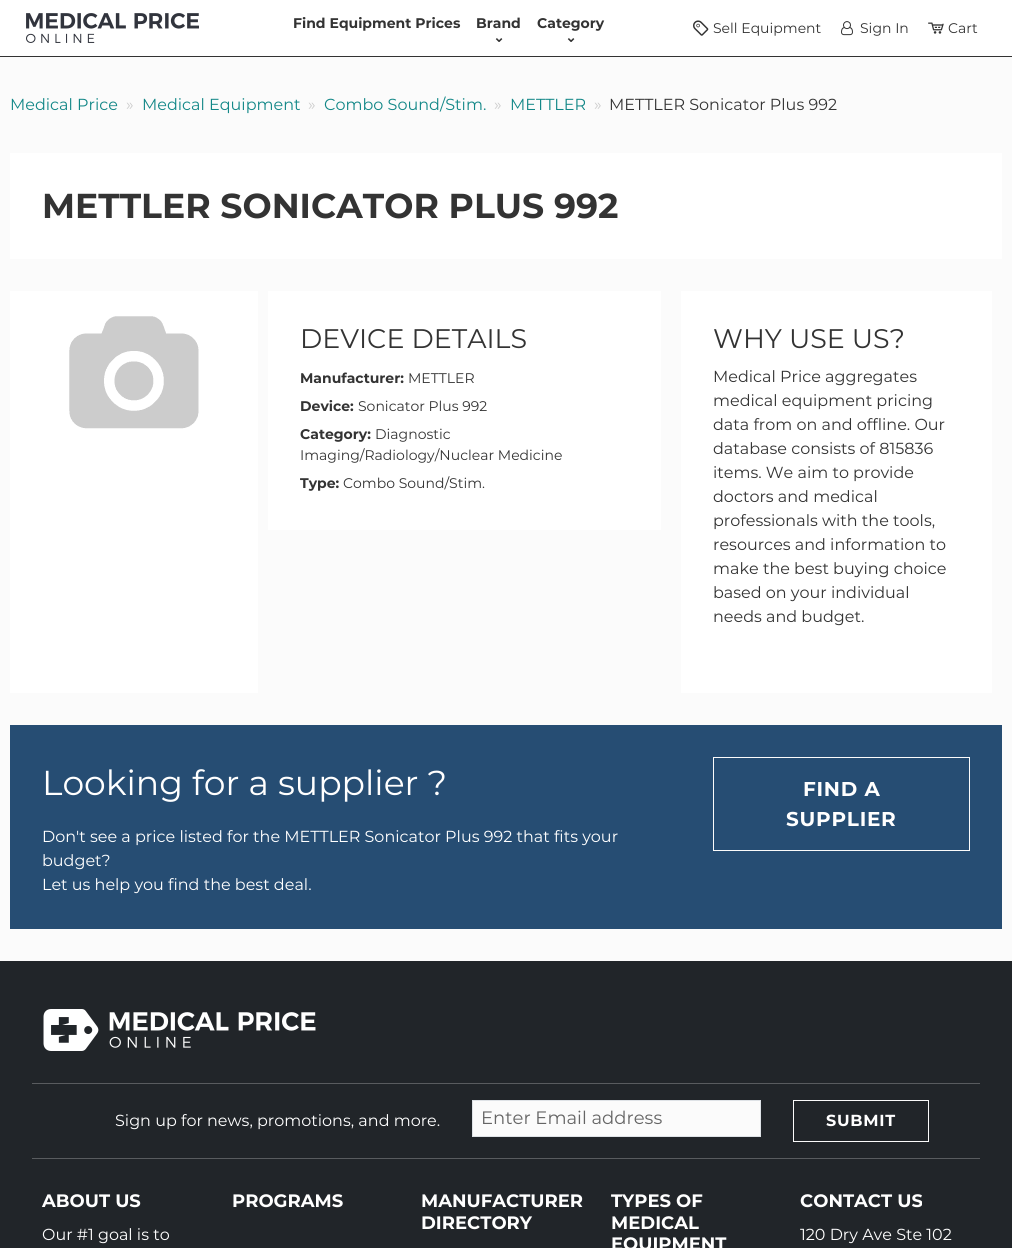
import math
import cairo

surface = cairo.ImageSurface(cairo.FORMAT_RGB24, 1012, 1248)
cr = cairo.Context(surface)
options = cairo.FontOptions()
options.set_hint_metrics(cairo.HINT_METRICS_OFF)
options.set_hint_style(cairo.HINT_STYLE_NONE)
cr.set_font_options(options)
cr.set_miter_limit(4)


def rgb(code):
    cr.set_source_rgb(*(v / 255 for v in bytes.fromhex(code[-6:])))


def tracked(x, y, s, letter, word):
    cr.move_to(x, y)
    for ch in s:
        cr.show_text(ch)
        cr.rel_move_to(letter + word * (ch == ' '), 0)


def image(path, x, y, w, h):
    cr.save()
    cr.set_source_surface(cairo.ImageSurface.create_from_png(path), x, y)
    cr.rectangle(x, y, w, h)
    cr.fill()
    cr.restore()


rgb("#fbfbfb")
cr.paint()
rgb("#ffffff")
cr.rectangle(0, 0, 1012, 56)
cr.fill()
rgb("#333333")
cr.rectangle(0, 56, 1012, 1)
cr.fill()
image("img/1.png", 26, 13, 173, 30)
image("img/2.png", 693, 20, 16, 16)
image("img/3.png", 841, 21, 12, 15)
image("img/4.png", 928, 22, 16, 12)
rgb("#ffffff")
cr.rectangle(10, 153, 992, 106)
cr.fill()
cr.rectangle(10, 291, 248, 402)
cr.fill()
image("img/5.png", 69, 316, 130, 113)
for x, y, w, h, color in [
    (268, 291, 393, 239, "#ffffff"),
    (681, 291, 311, 402, "#ffffff"),
    (10, 725, 992, 204, "#264d73"),
]:
    rgb(color)
    cr.rectangle(x, y, w, h)
    cr.fill()
cr.rectangle(713.5, 757.5, 256, 93)
rgb("#fbfbfb")
cr.set_line_width(1)
cr.stroke()
rgb("#212529")
cr.rectangle(0, 961, 1012, 287)
cr.fill()
image("img/6.png", 43, 1009, 273, 42)
rgb("#595c5f")
cr.rectangle(32, 1083, 948, 1)
cr.fill()
rgb("#fbfbfb")
cr.rectangle(472.5, 1100.5, 288, 36)
cr.fill_preserve()
rgb("#dee2e6")
cr.stroke()
cr.rectangle(793.5, 1100.5, 135, 41)
rgb("#fbfbfb")
cr.stroke()
rgb("#595c5f")
cr.rectangle(32, 1158, 948, 1)
cr.fill()
cr.select_font_face("Montserrat", cairo.FONT_SLANT_NORMAL, cairo.FONT_WEIGHT_BOLD)
cr.set_font_size(14)
rgb("#333333")
cr.move_to(293, 28)
cr.show_text("Find Equipment Prices")
cr.move_to(476, 28)
cr.show_text("Brand")
cr.select_font_face("DejaVu Sans", cairo.FONT_SLANT_NORMAL, cairo.FONT_WEIGHT_BOLD)
cr.move_to(493, 42)
cr.show_text("⌄")
cr.select_font_face("Montserrat", cairo.FONT_SLANT_NORMAL, cairo.FONT_WEIGHT_BOLD)
cr.move_to(537, 28)
cr.show_text("Category")
cr.select_font_face("DejaVu Sans", cairo.FONT_SLANT_NORMAL, cairo.FONT_WEIGHT_BOLD)
cr.move_to(565, 42)
cr.show_text("⌄")
cr.select_font_face("Montserrat")
for x, y, s in [
    (713, 33, "Sell Equipment"),
    (860, 33, "Sign In"),
    (948, 33, "Cart"),
]:
    cr.move_to(x, y)
    cr.show_text(s)
cr.set_font_size(16)
rgb("#128787")
cr.move_to(10, 110)
cr.show_text("Medical Price")
rgb("#cccccc")
cr.move_to(126, 110)
cr.show_text("»")
rgb("#128787")
cr.move_to(142, 110)
cr.show_text("Medical Equipment")
rgb("#cccccc")
cr.move_to(308, 110)
cr.show_text("»")
rgb("#128787")
cr.move_to(324, 110)
cr.show_text("Combo Sound/Stim.")
rgb("#cccccc")
cr.move_to(494, 110)
cr.show_text("»")
rgb("#128787")
cr.move_to(510, 110)
cr.show_text("METTLER")
rgb("#cccccc")
cr.move_to(594, 110)
cr.show_text("»")
rgb("#333333")
cr.move_to(609, 110)
cr.show_text("METTLER Sonicator Plus 992")
cr.select_font_face("Montserrat", cairo.FONT_SLANT_NORMAL, cairo.FONT_WEIGHT_BOLD)
cr.set_font_size(34.6)
cr.move_to(42, 218)
cr.show_text("METTLER SONICATOR PLUS 992")
cr.select_font_face("Montserrat")
cr.set_font_size(26.9)
cr.move_to(300, 348)
cr.show_text("DEVICE DETAILS")
cr.select_font_face("Montserrat", cairo.FONT_SLANT_NORMAL, cairo.FONT_WEIGHT_BOLD)
cr.set_font_size(14)
cr.move_to(300, 383)
cr.show_text("Manufacturer:")
cr.select_font_face("Montserrat")
cr.move_to(408, 383)
cr.show_text("METTLER")
cr.select_font_face("Montserrat", cairo.FONT_SLANT_NORMAL, cairo.FONT_WEIGHT_BOLD)
cr.move_to(300, 411)
cr.show_text("Device:")
cr.select_font_face("Montserrat")
cr.move_to(358, 411)
cr.show_text("Sonicator Plus 992")
cr.select_font_face("Montserrat", cairo.FONT_SLANT_NORMAL, cairo.FONT_WEIGHT_BOLD)
cr.move_to(300, 439)
cr.show_text("Category:")
cr.select_font_face("Montserrat")
cr.move_to(375, 439)
cr.show_text("Diagnostic")
cr.move_to(300, 460)
cr.show_text("Imaging/Radiology/Nuclear Medicine")
cr.select_font_face("Montserrat", cairo.FONT_SLANT_NORMAL, cairo.FONT_WEIGHT_BOLD)
cr.move_to(300, 488)
cr.show_text("Type:")
cr.select_font_face("Montserrat")
cr.move_to(343, 488)
cr.show_text("Combo Sound/Stim.")
cr.set_font_size(26.9)
cr.move_to(713, 348)
cr.show_text("WHY USE US?")
cr.set_font_size(16)
for x, y, s in [
    (713, 382, "Medical Price aggregates"),
    (713, 406, "medical equipment pricing"),
    (713, 430, "data from on and offline. Our"),
    (713, 454, "database consists of 815836"),
    (713, 478, "items. We aim to provide"),
    (713, 502, "doctors and medical"),
    (713, 526, "professionals with the tools,"),
    (713, 550, "resources and information to"),
    (713, 574, "make the best buying choice"),
    (713, 598, "based on your individual"),
    (713, 622, "needs and budget."),
]:
    cr.move_to(x, y)
    cr.show_text(s)
cr.set_font_size(34.6)
rgb("#ffffff")
cr.move_to(42, 795)
cr.show_text("Looking for a supplier ?")
cr.set_font_size(16)
for x, y, s in [
    (42, 842, "Don't see a price listed for the METTLER Sonicator Plus 992 that fits your"),
    (42, 866, "budget?"),
    (42, 890, "Let us help you find the best deal."),
]:
    cr.move_to(x, y)
    cr.show_text(s)
cr.select_font_face("Montserrat", cairo.FONT_SLANT_NORMAL, cairo.FONT_WEIGHT_BOLD)
cr.set_font_size(20)
tracked(803, 796, "FIND A", 0.75, 0)
tracked(786, 826, "SUPPLIER", 0.75, 0)
cr.select_font_face("Montserrat")
cr.set_font_size(16)
cr.move_to(115, 1126)
cr.show_text("Sign up for news, promotions, and more.")
cr.set_font_size(18)
rgb("#656565")
cr.move_to(481, 1124)
cr.show_text("Enter Email address")
cr.select_font_face("Montserrat", cairo.FONT_SLANT_NORMAL, cairo.FONT_WEIGHT_BOLD)
cr.set_font_size(16)
rgb("#ffffff")
tracked(826, 1126, "SUBMIT", 0.75, 0)
cr.set_font_size(18)
cr.move_to(42, 1207)
cr.show_text("ABOUT US")
cr.select_font_face("Montserrat")
cr.set_font_size(16)
cr.move_to(42, 1240)
cr.show_text("Our #1 goal is to")
cr.select_font_face("Montserrat", cairo.FONT_SLANT_NORMAL, cairo.FONT_WEIGHT_BOLD)
cr.set_font_size(18)
for x, y, s in [
    (232, 1207, "PROGRAMS"),
    (421, 1207, "MANUFACTURER"),
    (421, 1229, "DIRECTORY"),
    (611, 1207, "TYPES OF"),
    (611, 1229, "MEDICAL"),
    (611, 1250, "EQUIPMENT"),
    (800, 1207, "CONTACT US"),
]:
    cr.move_to(x, y)
    cr.show_text(s)
cr.select_font_face("Montserrat")
cr.set_font_size(16)
cr.move_to(800, 1240)
cr.show_text("120 Dry Ave Ste 102")
surface.write_to_png("page.png")
